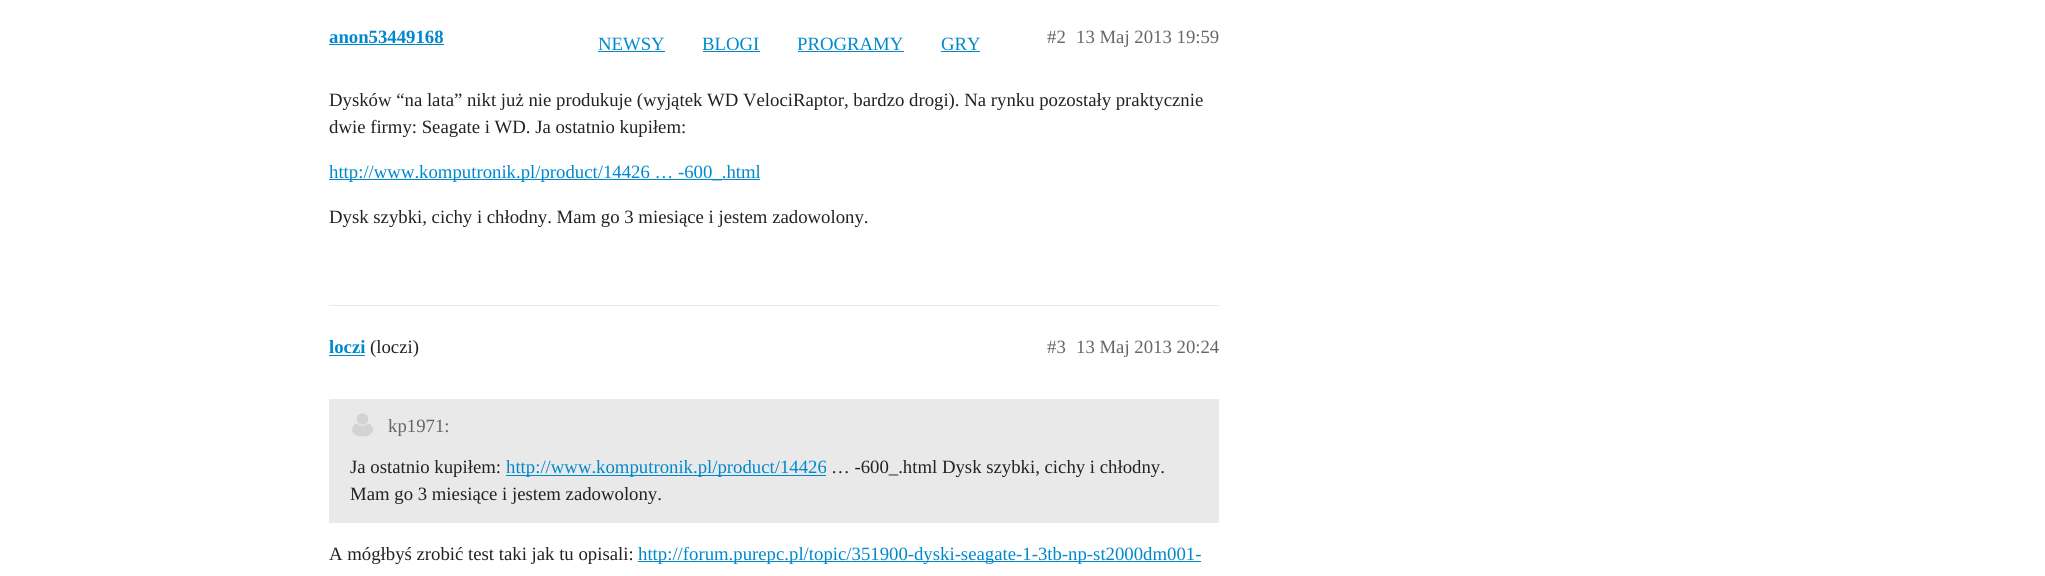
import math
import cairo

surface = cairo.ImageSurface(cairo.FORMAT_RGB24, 2045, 576)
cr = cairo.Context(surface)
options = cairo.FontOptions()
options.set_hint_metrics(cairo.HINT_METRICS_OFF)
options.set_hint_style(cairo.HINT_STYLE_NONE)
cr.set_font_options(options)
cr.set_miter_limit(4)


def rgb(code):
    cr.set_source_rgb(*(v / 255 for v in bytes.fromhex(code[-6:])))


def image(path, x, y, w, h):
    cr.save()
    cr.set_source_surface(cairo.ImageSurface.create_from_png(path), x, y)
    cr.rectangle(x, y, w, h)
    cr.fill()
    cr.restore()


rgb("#ffffff")
cr.paint()
for x, y, w, h, color in [
    (329, 44, 115, 1, "#0088cc"),
    (329, 179, 431, 1, "#0088cc"),
    (329, 305, 890, 1, "#e9e9e9"),
    (329, 355, 36, 1, "#0088cc"),
    (329, 399, 890, 124, "#e9e9e9"),
]:
    rgb(color)
    cr.rectangle(x, y, w, h)
    cr.fill()
image("img/1.png", 352, 413, 21, 24)
for x, y, w, h, color in [
    (506, 475, 320, 1, "#0088cc"),
    (638, 561, 563, 1, "#0088cc"),
    (598, 51, 67, 1, "#0088cc"),
    (703, 51, 57, 1, "#0088cc"),
    (798, 51, 106, 1, "#0088cc"),
    (941, 51, 39, 1, "#0088cc"),
]:
    rgb(color)
    cr.rectangle(x, y, w, h)
    cr.fill()
cr.select_font_face("Liberation Serif", cairo.FONT_SLANT_NORMAL, cairo.FONT_WEIGHT_BOLD)
cr.set_font_size(18.75)
cr.move_to(329, 43)
cr.show_text("anon53449168")
cr.select_font_face("Liberation Serif")
rgb("#666666")
cr.move_to(1047, 43)
cr.show_text("#2")
cr.move_to(1076, 43)
cr.show_text("13 Maj 2013 19:59")
rgb("#222222")
cr.move_to(329, 106)
cr.show_text("Dysków “na lata” nikt już nie produkuje (wyjątek WD VelociRaptor, bardzo drogi). Na rynku pozostały praktycznie")
cr.move_to(329, 133)
cr.show_text("dwie firmy: Seagate i WD. Ja ostatnio kupiłem:")
rgb("#0088cc")
cr.move_to(329, 178)
cr.show_text("http://www.komputronik.pl/product/14426 … -600_.html")
rgb("#222222")
cr.move_to(329, 223)
cr.show_text("Dysk szybki, cichy i chłodny. Mam go 3 miesiące i jestem zadowolony.")
cr.select_font_face("Liberation Serif", cairo.FONT_SLANT_NORMAL, cairo.FONT_WEIGHT_BOLD)
rgb("#0088cc")
cr.move_to(329, 353)
cr.show_text("loczi")
cr.select_font_face("Liberation Serif")
rgb("#222222")
cr.move_to(370, 353)
cr.show_text("(loczi)")
rgb("#666666")
for x, y, s in [
    (1047, 353, "#3"),
    (1076, 353, "13 Maj 2013 20:24"),
    (388, 432, "kp1971:"),
]:
    cr.move_to(x, y)
    cr.show_text(s)
rgb("#222222")
cr.move_to(350, 473)
cr.show_text("Ja ostatnio kupiłem:")
rgb("#0088cc")
cr.move_to(506, 473)
cr.show_text("http://www.komputronik.pl/product/14426")
rgb("#222222")
for x, y, s in [
    (831, 473, "… -600_.html Dysk szybki, cichy i chłodny."),
    (350, 500, "Mam go 3 miesiące i jestem zadowolony."),
    (329, 560, "A mógłbyś zrobić test taki jak tu opisali:"),
]:
    cr.move_to(x, y)
    cr.show_text(s)
rgb("#0088cc")
for x, y, s in [
    (638, 560, "http://forum.purepc.pl/topic/351900-dyski-seagate-1-3tb-np-st2000dm001-"),
    (598, 50, "NEWSY"),
    (702, 50, "BLOGI"),
    (797, 50, "PROGRAMY"),
    (941, 50, "GRY"),
]:
    cr.move_to(x, y)
    cr.show_text(s)
surface.write_to_png("page.png")
